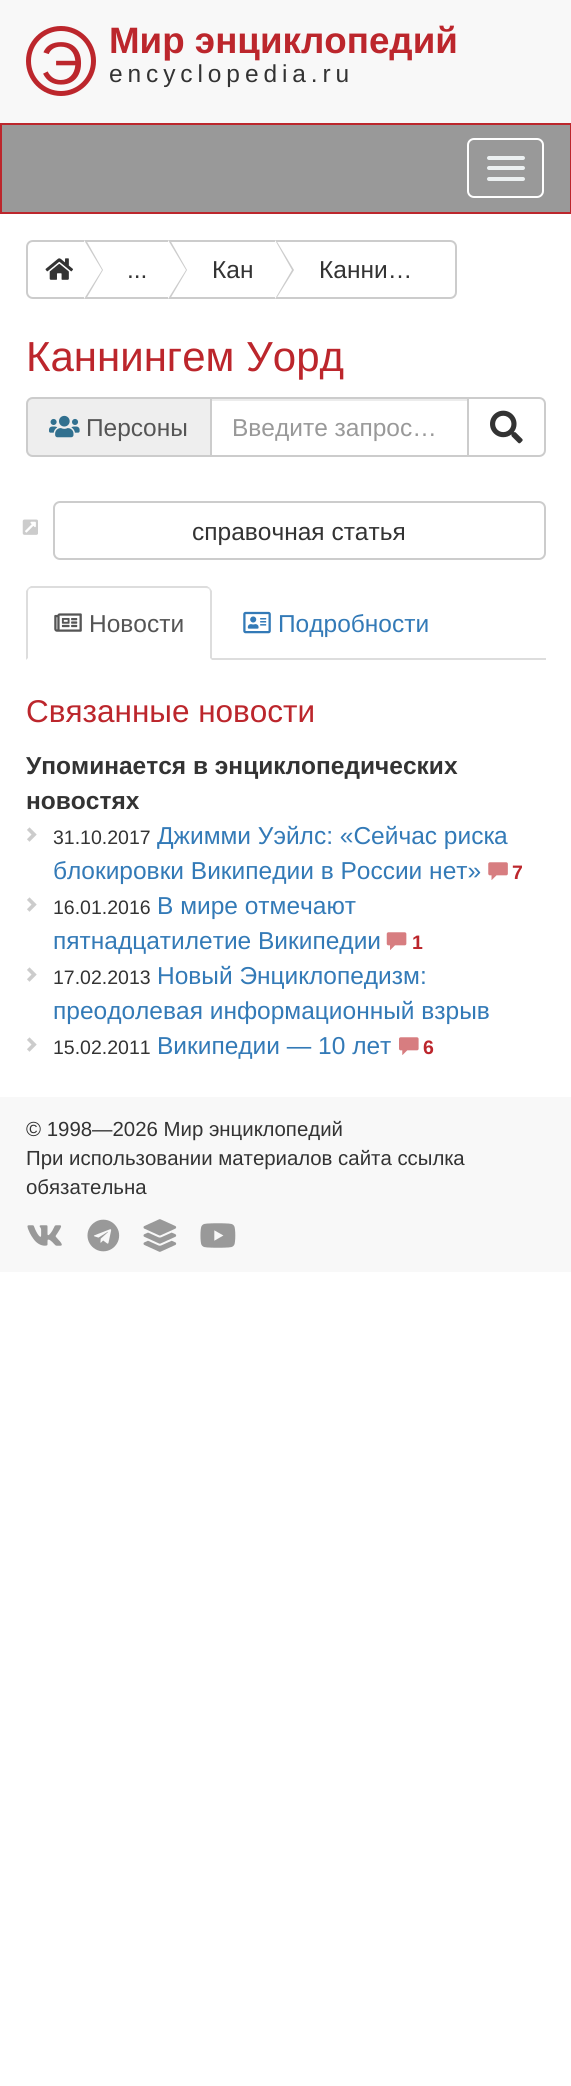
import math
import cairo

surface = cairo.ImageSurface(cairo.FORMAT_RGB24, 571, 2086)
cr = cairo.Context(surface)
options = cairo.FontOptions()
options.set_hint_metrics(cairo.HINT_METRICS_OFF)
options.set_hint_style(cairo.HINT_STYLE_NONE)
cr.set_font_options(options)
cr.set_miter_limit(4)


def rgb(code):
    cr.set_source_rgb(*(v / 255 for v in bytes.fromhex(code[-6:])))


def tracked(x, y, s, letter, word):
    cr.move_to(x, y)
    for ch in s:
        cr.show_text(ch)
        cr.rel_move_to(letter + word * (ch == ' '), 0)


def rrect(x, y, w, h, r):
    cr.new_sub_path()
    for i, (u, v) in enumerate([(x + w - r, y + h - r), (x + r, y + h - r), (x + r, y + r), (x + w - r, y + r)]):
        cr.arc(u, v, r, i * math.pi / 2, (i + 1) * math.pi / 2)
    cr.close_path()


def image(path, x, y, w, h):
    cr.save()
    cr.set_source_surface(cairo.ImageSurface.create_from_png(path), x, y)
    cr.rectangle(x, y, w, h)
    cr.fill()
    cr.restore()


rgb("#ffffff")
cr.paint()
rgb("#f8f8f8")
cr.rectangle(0, 0, 571, 123)
cr.fill()
cr.arc(61, 61, 32.5, 0, 2 * math.pi)
rgb("#bc262c")
cr.set_line_width(5)
cr.stroke()
rgb("#999999")
cr.rectangle(1, 124, 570, 89)
cr.fill_preserve()
rgb("#bc262c")
cr.set_line_width(2)
cr.stroke()
rrect(468, 139, 75, 58, 6)
rgb("#ffffff")
cr.stroke()
rgb("#ecf0f1")
rrect(487, 156, 38, 4, 2)
cr.fill()
rrect(487, 166, 38, 4, 2)
cr.fill()
rrect(487, 177, 38, 4, 2)
cr.fill()
cr.new_path()
cr.move_to(33, 241)
cr.line_to(85, 241)
cr.line_to(85, 298)
cr.line_to(33, 298)
cr.curve_to(29.5, 298, 27, 295.5, 27, 292)
cr.line_to(27, 247)
cr.curve_to(27, 243.5, 29.5, 241, 33, 241)
cr.close_path()
rgb("#cccccc")
cr.stroke()
cr.rectangle(85, 241, 84, 57)
cr.stroke()
cr.new_path()
cr.move_to(86, 299)
cr.line_to(86, 240)
cr.line_to(103, 270)
cr.close_path()
cr.fill()
rgb("#ffffff")
cr.new_path()
cr.move_to(84, 299)
cr.line_to(84, 240)
cr.line_to(102, 270)
cr.close_path()
cr.fill()
image("img/1.png", 45, 258, 28, 22)
cr.rectangle(169, 241, 107, 57)
rgb("#cccccc")
cr.stroke()
cr.new_path()
cr.move_to(170, 299)
cr.line_to(170, 240)
cr.line_to(187, 270)
cr.close_path()
cr.fill()
rgb("#ffffff")
cr.new_path()
cr.move_to(168, 299)
cr.line_to(168, 240)
cr.line_to(186, 270)
cr.close_path()
cr.fill()
cr.new_path()
cr.move_to(276, 241)
cr.line_to(450, 241)
cr.curve_to(453.5, 241, 456, 243.5, 456, 247)
cr.line_to(456, 292)
cr.curve_to(456, 295.5, 453.5, 298, 450, 298)
cr.line_to(276, 298)
cr.close_path()
cr.fill_preserve()
rgb("#cccccc")
cr.stroke()
cr.new_path()
cr.move_to(276, 299)
cr.line_to(276, 240)
cr.line_to(294, 270)
cr.close_path()
cr.fill()
rgb("#ffffff")
cr.new_path()
cr.move_to(275, 299)
cr.line_to(275, 240)
cr.line_to(292, 270)
cr.close_path()
cr.fill()
rgb("#eeeeee")
cr.new_path()
cr.move_to(33, 397)
cr.line_to(210, 397)
cr.line_to(210, 457)
cr.line_to(33, 457)
cr.curve_to(29, 457, 26, 454, 26, 450)
cr.line_to(26, 404)
cr.curve_to(26, 400, 29, 397, 33, 397)
cr.close_path()
cr.fill()
rgb("#cccccc")
cr.set_fill_rule(cairo.FILL_RULE_EVEN_ODD)
cr.new_path()
cr.move_to(33, 397)
cr.line_to(210, 397)
cr.line_to(210, 457)
cr.line_to(33, 457)
cr.curve_to(29, 457, 26, 454, 26, 450)
cr.line_to(26, 404)
cr.curve_to(26, 400, 29, 397, 33, 397)
cr.close_path()
cr.move_to(33, 399)
cr.line_to(210, 399)
cr.line_to(210, 455)
cr.line_to(33, 455)
cr.curve_to(30, 455, 28, 453, 28, 450)
cr.line_to(28, 404)
cr.curve_to(28, 401, 30, 399, 33, 399)
cr.close_path()
cr.fill()
image("img/2.png", 49, 415, 31, 23)
rgb("#ececec")
cr.rectangle(212, 399, 255, 2)
cr.fill()
cr.rectangle(211, 398, 257, 58)
rgb("#cccccc")
cr.stroke()
rgb("#ffffff")
cr.new_path()
cr.move_to(468, 398)
cr.line_to(539, 398)
cr.curve_to(542.5, 398, 545, 400.5, 545, 404)
cr.line_to(545, 450)
cr.curve_to(545, 453.5, 542.5, 456, 539, 456)
cr.line_to(468, 456)
cr.close_path()
cr.fill_preserve()
rgb("#cccccc")
cr.stroke()
image("img/3.png", 490, 410, 33, 34)
image("img/4.png", 22, 519, 16, 16)
rrect(54, 502, 491, 57, 6)
cr.stroke()
rgb("#dddddd")
cr.rectangle(212, 658, 334, 2)
cr.fill()
cr.set_fill_rule(cairo.FILL_RULE_WINDING)
cr.new_path()
cr.move_to(33, 588)
cr.curve_to(32, 588, 30, 588, 29, 589)
cr.line_to(28, 588)
cr.line_to(31, 586)
cr.line_to(207, 586)
cr.line_to(210, 588)
cr.line_to(209, 589)
cr.curve_to(208, 588, 206, 588, 205, 588)
cr.close_path()
cr.fill()
cr.new_path()
cr.move_to(210, 588)
cr.line_to(212, 591)
cr.line_to(212, 660)
cr.line_to(210, 658)
cr.line_to(210, 593)
cr.curve_to(210, 592, 210, 590, 209, 589)
cr.close_path()
cr.fill()
cr.new_path()
cr.move_to(26, 660)
cr.line_to(26, 591)
cr.line_to(28, 588)
cr.line_to(29, 589)
cr.curve_to(28, 590, 28, 592, 28, 593)
cr.line_to(28, 658)
cr.close_path()
cr.fill()
image("img/5.png", 54, 613, 28, 19)
image("img/6.png", 243, 611, 28, 23)
image("img/7.png", 27, 827, 10, 15)
image("img/8.png", 488, 862, 20, 18)
image("img/7.png", 27, 897, 10, 15)
image("img/9.png", 386, 932, 21, 18)
image("img/7.png", 27, 967, 10, 15)
image("img/7.png", 27, 1037, 10, 15)
image("img/10.png", 399, 1037, 20, 18)
rgb("#f8f8f8")
cr.rectangle(0, 1097, 571, 175)
cr.fill()
image("img/11.png", 27, 1225, 35, 21)
image("img/12.png", 87, 1219, 33, 33)
image("img/13.png", 143, 1219, 34, 33)
image("img/14.png", 200, 1223, 36, 25)
cr.select_font_face("Liberation Sans")
cr.set_font_size(60)
rgb("#bc262c")
cr.move_to(40, 84)
cr.show_text("Э")
cr.select_font_face("Liberation Sans", cairo.FONT_SLANT_NORMAL, cairo.FONT_WEIGHT_BOLD)
cr.set_font_size(36.75)
cr.move_to(109, 53)
cr.show_text("Мир энциклопедий")
cr.select_font_face("Liberation Sans")
cr.set_font_size(24.5)
rgb("#333333")
tracked(109, 82, "encyclopedia.ru", 4.9, 0)
for x, y, s in [
    (127, 278, "..."),
    (212, 278, "Кан"),
    (319, 278, "Канни…"),
]:
    cr.move_to(x, y)
    cr.show_text(s)
cr.set_font_size(42)
rgb("#bc262c")
cr.move_to(26, 371)
cr.show_text("Каннингем Уорд")
cr.set_font_size(24.5)
rgb("#555555")
cr.move_to(86, 436)
cr.show_text("Персоны")
rgb("#999999")
cr.move_to(232, 436)
cr.show_text("Введите запрос…")
rgb("#333333")
cr.move_to(192, 540)
cr.show_text("справочная статья")
rgb("#555555")
cr.move_to(89, 632)
cr.show_text("Новости")
rgb("#337ab7")
cr.move_to(278, 632)
cr.show_text("Подробности")
cr.set_font_size(31.5)
rgb("#bc262c")
cr.move_to(26, 722)
cr.show_text("Связанные новости")
cr.select_font_face("Liberation Sans", cairo.FONT_SLANT_NORMAL, cairo.FONT_WEIGHT_BOLD)
cr.set_font_size(24.5)
rgb("#333333")
cr.move_to(26, 774)
cr.show_text("Упоминается в энциклопедических")
cr.move_to(26, 809)
cr.show_text("новостях")
cr.select_font_face("Liberation Sans")
cr.set_font_size(19.5)
cr.move_to(53, 844)
cr.show_text("31.10.2017")
cr.set_font_size(24.5)
rgb("#337ab7")
cr.move_to(157, 844)
cr.show_text("Джимми Уэйлс: «Сейчас риска")
cr.move_to(53, 879)
cr.show_text("блокировки Википедии в России нет»")
cr.select_font_face("Liberation Sans", cairo.FONT_SLANT_NORMAL, cairo.FONT_WEIGHT_BOLD)
cr.set_font_size(19.5)
rgb("#bc262c")
cr.move_to(512, 879)
cr.show_text("7")
cr.select_font_face("Liberation Sans")
rgb("#333333")
cr.move_to(53, 914)
cr.show_text("16.01.2016")
cr.set_font_size(24.5)
rgb("#337ab7")
cr.move_to(157, 914)
cr.show_text("В мире отмечают")
cr.move_to(53, 949)
cr.show_text("пятнадцатилетие Википедии")
cr.select_font_face("Liberation Sans", cairo.FONT_SLANT_NORMAL, cairo.FONT_WEIGHT_BOLD)
cr.set_font_size(19.5)
rgb("#bc262c")
cr.move_to(412, 949)
cr.show_text("1")
cr.select_font_face("Liberation Sans")
rgb("#333333")
cr.move_to(53, 984)
cr.show_text("17.02.2013")
cr.set_font_size(24.5)
rgb("#337ab7")
cr.move_to(157, 984)
cr.show_text("Новый Энциклопедизм:")
cr.move_to(53, 1019)
cr.show_text("преодолевая информационный взрыв")
cr.set_font_size(19.5)
rgb("#333333")
cr.move_to(53, 1054)
cr.show_text("15.02.2011")
cr.set_font_size(24.5)
rgb("#337ab7")
cr.move_to(157, 1054)
cr.show_text("Википедии — 10 лет")
cr.select_font_face("Liberation Sans", cairo.FONT_SLANT_NORMAL, cairo.FONT_WEIGHT_BOLD)
cr.set_font_size(19.5)
rgb("#bc262c")
cr.move_to(423, 1054)
cr.show_text("6")
cr.select_font_face("Liberation Sans")
cr.set_font_size(20.4)
rgb("#333333")
for x, y, s in [
    (26, 1136, "© 1998—2026 Мир энциклопедий"),
    (26, 1165, "При использовании материалов сайта ссылка"),
    (26, 1194, "обязательна"),
]:
    cr.move_to(x, y)
    cr.show_text(s)
surface.write_to_png("page.png")
